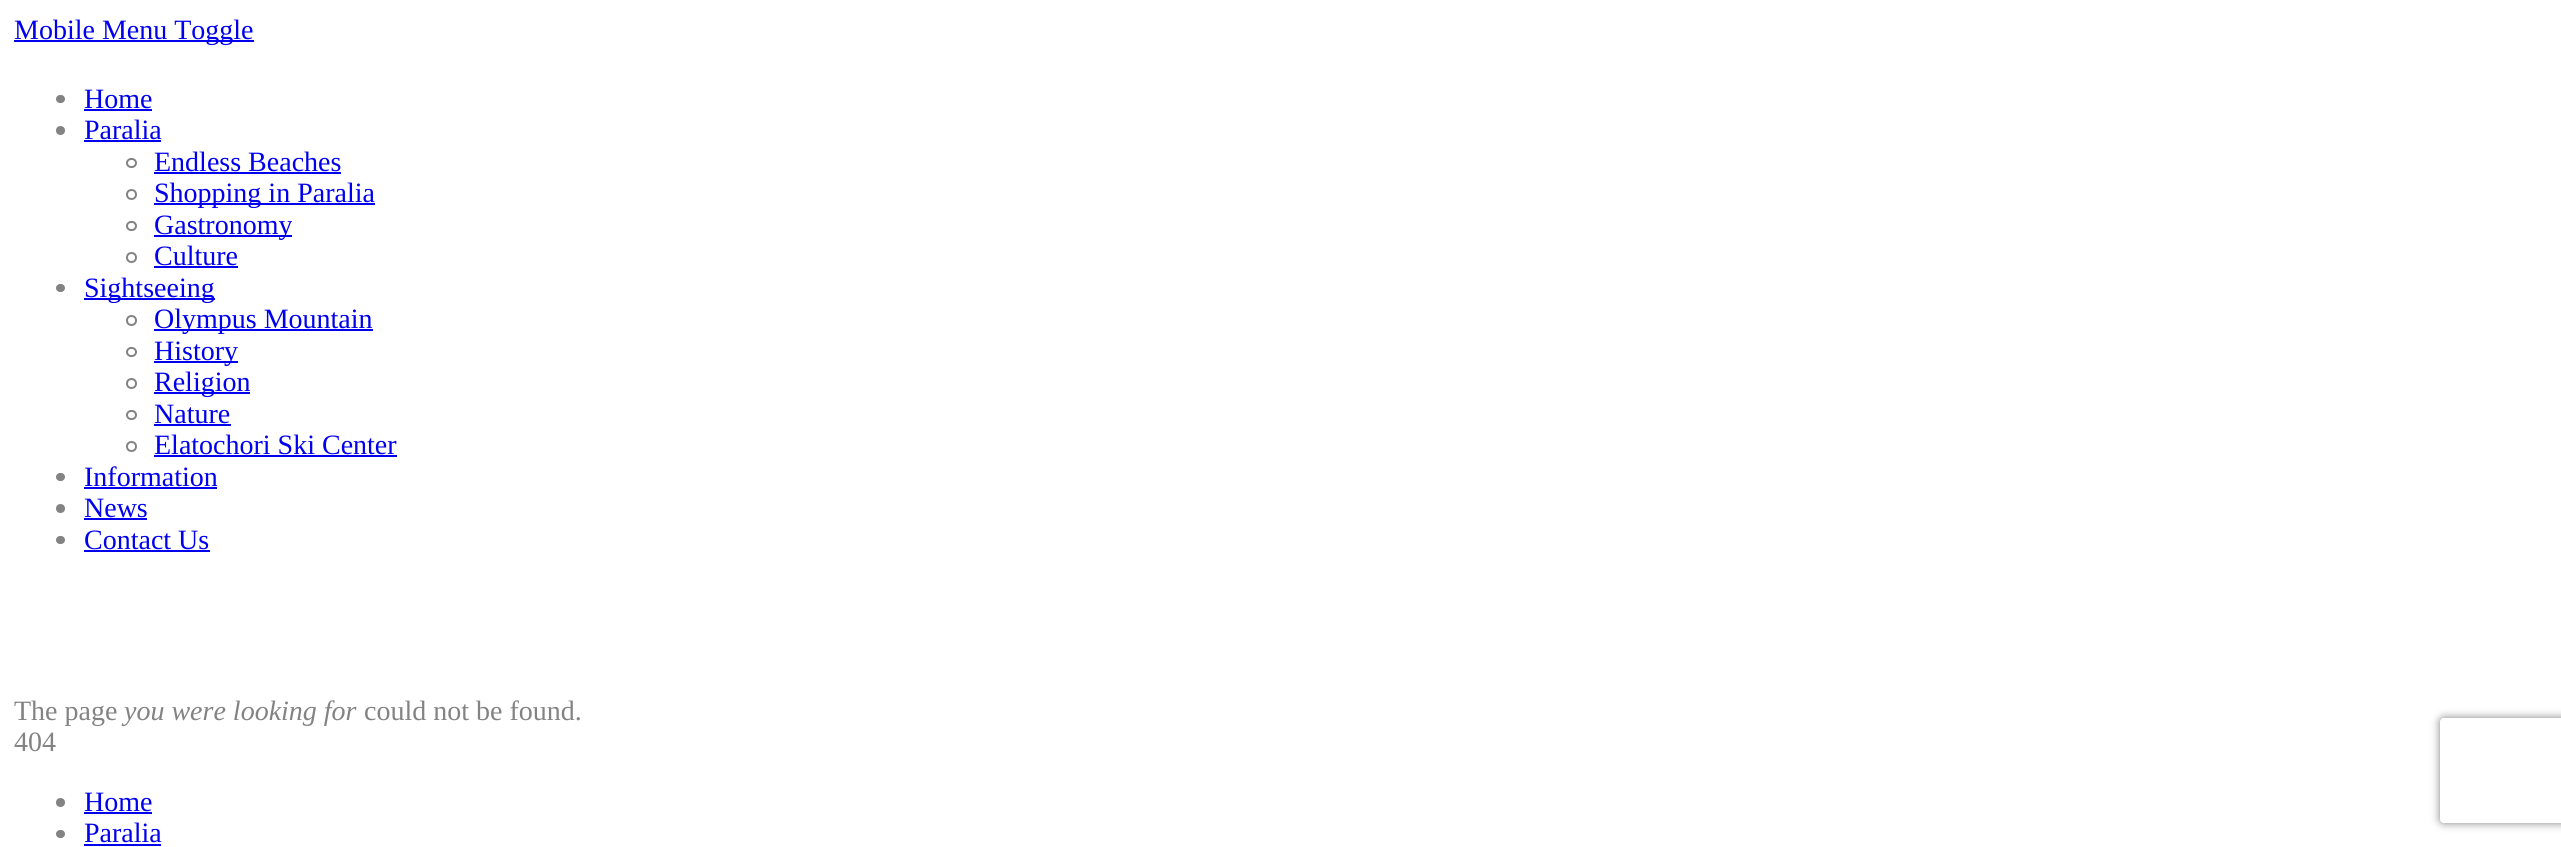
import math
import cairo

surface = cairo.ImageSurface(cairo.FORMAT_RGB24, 2561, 847)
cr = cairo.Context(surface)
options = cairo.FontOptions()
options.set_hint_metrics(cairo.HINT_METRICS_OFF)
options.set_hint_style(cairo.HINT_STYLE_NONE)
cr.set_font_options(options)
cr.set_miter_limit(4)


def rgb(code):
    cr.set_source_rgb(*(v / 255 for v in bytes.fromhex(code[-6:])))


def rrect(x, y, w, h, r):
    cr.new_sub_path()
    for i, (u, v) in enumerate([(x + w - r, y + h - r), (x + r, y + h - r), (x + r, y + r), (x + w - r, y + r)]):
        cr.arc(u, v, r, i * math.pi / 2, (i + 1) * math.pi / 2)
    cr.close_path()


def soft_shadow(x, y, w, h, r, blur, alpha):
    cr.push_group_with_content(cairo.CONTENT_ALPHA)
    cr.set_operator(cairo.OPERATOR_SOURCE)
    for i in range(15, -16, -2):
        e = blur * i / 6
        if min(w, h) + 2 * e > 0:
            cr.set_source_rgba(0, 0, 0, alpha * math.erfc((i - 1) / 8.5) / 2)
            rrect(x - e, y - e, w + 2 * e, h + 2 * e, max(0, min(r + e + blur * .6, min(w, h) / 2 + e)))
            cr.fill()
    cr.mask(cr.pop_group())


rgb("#ffffff")
cr.paint()
rgb("#0000ee")
cr.rectangle(14, 40, 240, 2)
cr.fill()
rgb("#838383")
rrect(56, 95, 9, 8, 4)
cr.fill()
rgb("#0000ee")
cr.rectangle(84, 109, 68, 2)
cr.fill()
rgb("#838383")
cr.arc(60.5, 130.5, 4.5, 0, 2 * math.pi)
cr.fill()
rgb("#0000ee")
cr.rectangle(84, 140, 77, 2)
cr.fill()
rrect(127, 159, 9, 8, 4)
rgb("#838383")
cr.stroke()
rgb("#0000ee")
cr.rectangle(154, 172, 187, 2)
cr.fill()
cr.arc(131.5, 194.5, 4.5, 0, 2 * math.pi)
rgb("#838383")
cr.stroke()
rgb("#0000ee")
cr.rectangle(154, 203, 221, 2)
cr.fill()
rrect(127, 222, 9, 8, 4)
rgb("#838383")
cr.stroke()
rgb("#0000ee")
cr.rectangle(154, 235, 138, 2)
cr.fill()
cr.arc(131.5, 257.5, 4.5, 0, 2 * math.pi)
rgb("#838383")
cr.stroke()
rgb("#0000ee")
cr.rectangle(154, 266, 84, 2)
cr.fill()
rgb("#838383")
rrect(56, 284, 9, 8, 4)
cr.fill()
rgb("#0000ee")
cr.rectangle(84, 298, 131, 2)
cr.fill()
cr.arc(131.5, 320.5, 4.5, 0, 2 * math.pi)
rgb("#838383")
cr.stroke()
rgb("#0000ee")
cr.rectangle(154, 329, 219, 2)
cr.fill()
rrect(127, 348, 9, 8, 4)
rgb("#838383")
cr.stroke()
rgb("#0000ee")
cr.rectangle(154, 361, 84, 2)
cr.fill()
cr.arc(131.5, 383.5, 4.5, 0, 2 * math.pi)
rgb("#838383")
cr.stroke()
rgb("#0000ee")
cr.rectangle(154, 392, 96, 2)
cr.fill()
rrect(127, 411, 9, 8, 4)
rgb("#838383")
cr.stroke()
rgb("#0000ee")
cr.rectangle(154, 424, 77, 2)
cr.fill()
cr.arc(131.5, 446.5, 4.5, 0, 2 * math.pi)
rgb("#838383")
cr.stroke()
rgb("#0000ee")
cr.rectangle(154, 455, 243, 2)
cr.fill()
rgb("#838383")
rrect(56, 473, 9, 8, 4)
cr.fill()
rgb("#0000ee")
cr.rectangle(84, 487, 133, 2)
cr.fill()
rgb("#838383")
cr.arc(60.5, 508.5, 4.5, 0, 2 * math.pi)
cr.fill()
rgb("#0000ee")
cr.rectangle(84, 518, 63, 2)
cr.fill()
rgb("#838383")
rrect(56, 536, 9, 8, 4)
cr.fill()
rgb("#0000ee")
cr.rectangle(84, 550, 126, 2)
cr.fill()
rgb("#838383")
cr.arc(60.5, 802.5, 4.5, 0, 2 * math.pi)
cr.fill()
rgb("#0000ee")
cr.rectangle(84, 812, 68, 2)
cr.fill()
rgb("#838383")
rrect(56, 830, 9, 8, 4)
cr.fill()
rgb("#0000ee")
cr.rectangle(84, 844, 77, 2)
cr.fill()
cr.save()
cr.set_fill_rule(cairo.FILL_RULE_EVEN_ODD)
cr.new_path()
cr.move_to(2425, 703)
cr.line_to(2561, 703)
cr.line_to(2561, 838)
cr.line_to(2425, 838)
cr.close_path()
cr.move_to(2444, 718)
cr.line_to(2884, 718)
cr.curve_to(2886, 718, 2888, 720, 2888, 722)
cr.line_to(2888, 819)
cr.curve_to(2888, 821, 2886, 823, 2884, 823)
cr.line_to(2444, 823)
cr.curve_to(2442, 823, 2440, 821, 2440, 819)
cr.line_to(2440, 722)
cr.curve_to(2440, 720, 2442, 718, 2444, 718)
cr.close_path()
cr.clip()
rgb("#808080")
soft_shadow(2440, 718, 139, 105, 4, 4.5, 1)
cr.restore()
cr.select_font_face("Liberation Serif")
cr.set_font_size(28)
for x, y, s in [
    (14, 39, "Mobile Menu Toggle"),
    (84, 108, "Home"),
    (84, 139, "Paralia"),
    (154, 171, "Endless Beaches"),
    (154, 202, "Shopping in Paralia"),
    (154, 234, "Gastronomy"),
    (154, 265, "Culture"),
    (84, 297, "Sightseeing"),
    (154, 328, "Olympus Mountain"),
    (154, 360, "History"),
    (154, 391, "Religion"),
    (154, 423, "Nature"),
    (154, 454, "Elatochori Ski Center"),
    (84, 486, "Information"),
    (84, 517, "News"),
    (84, 549, "Contact Us"),
]:
    cr.move_to(x, y)
    cr.show_text(s)
rgb("#838383")
cr.move_to(14, 720)
cr.show_text("The page")
cr.select_font_face("Liberation Serif", cairo.FONT_SLANT_ITALIC)
cr.move_to(124, 720)
cr.show_text("you were looking for")
cr.select_font_face("Liberation Serif")
cr.move_to(364, 720)
cr.show_text("could not be found.")
cr.move_to(14, 751)
cr.show_text("404")
rgb("#0000ee")
cr.move_to(84, 811)
cr.show_text("Home")
cr.move_to(84, 842)
cr.show_text("Paralia")
surface.write_to_png("page.png")
